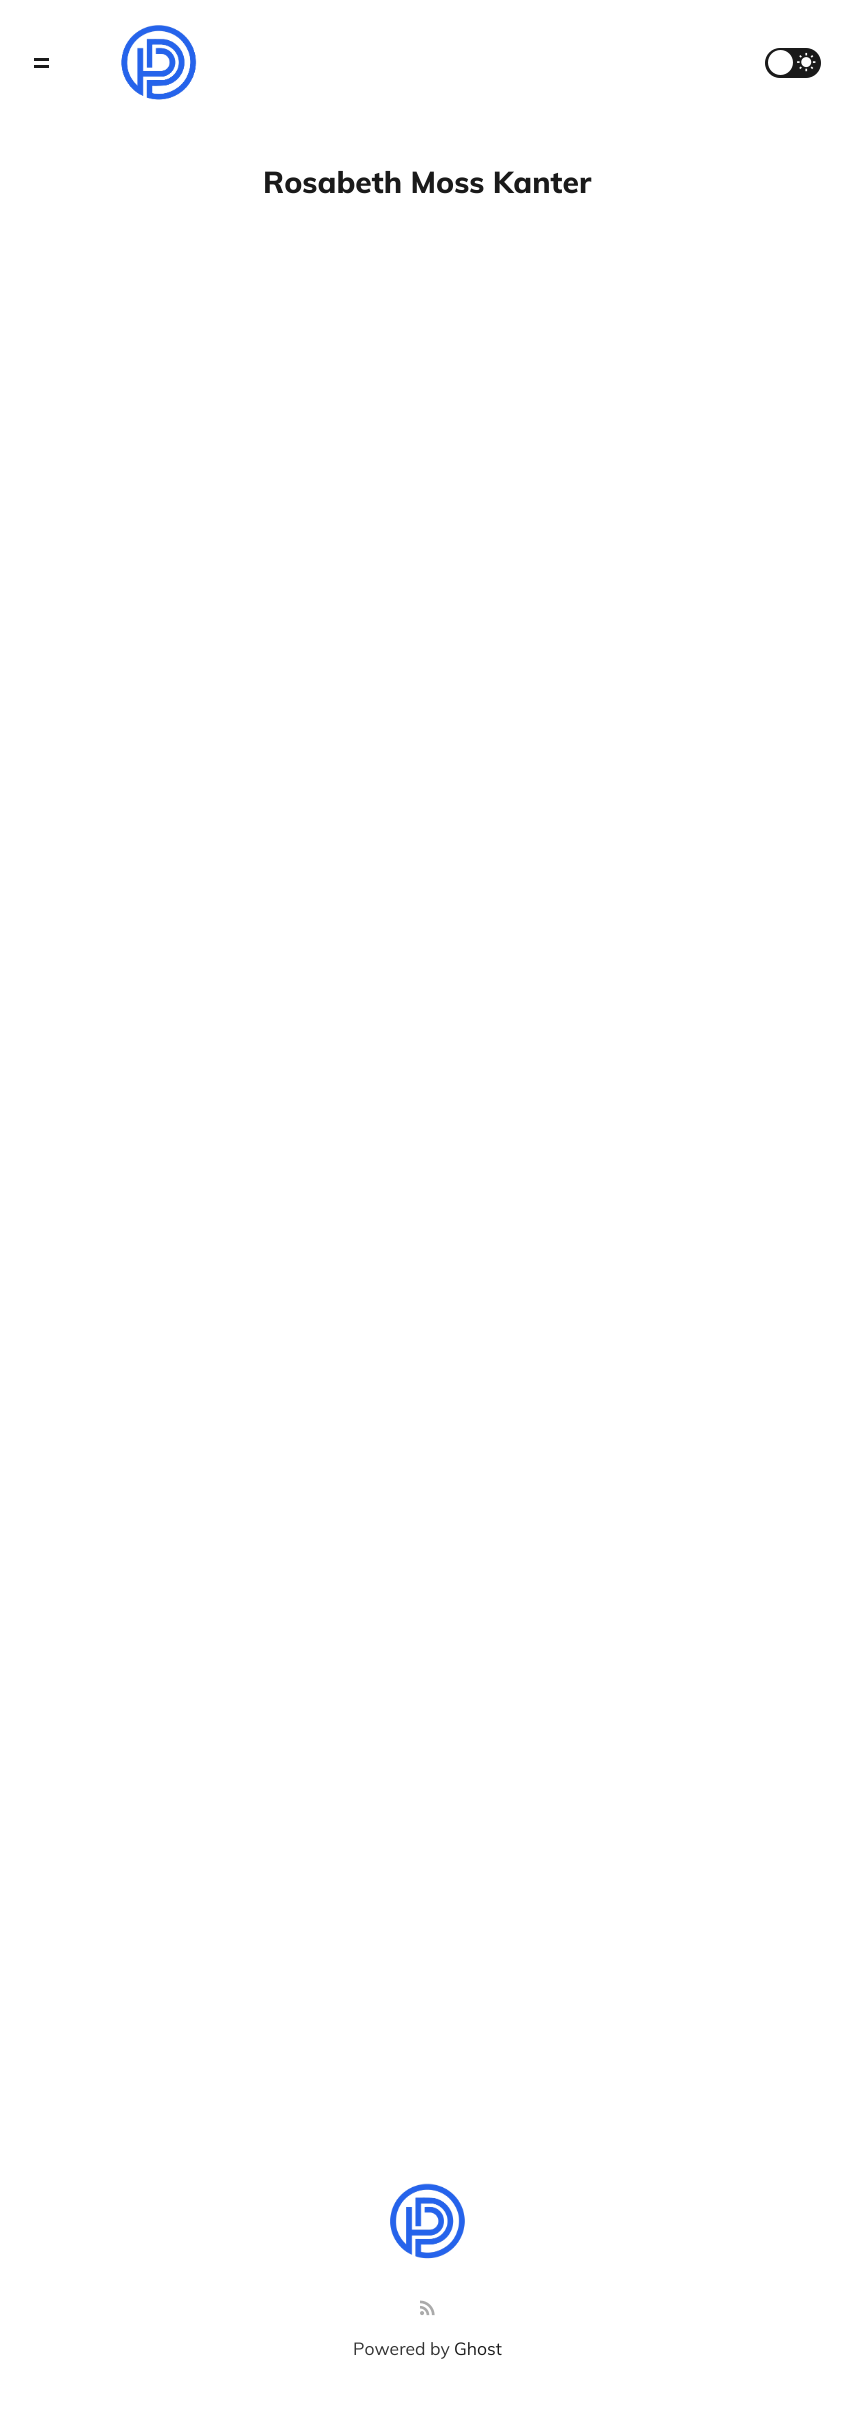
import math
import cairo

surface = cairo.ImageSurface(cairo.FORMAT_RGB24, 854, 2413)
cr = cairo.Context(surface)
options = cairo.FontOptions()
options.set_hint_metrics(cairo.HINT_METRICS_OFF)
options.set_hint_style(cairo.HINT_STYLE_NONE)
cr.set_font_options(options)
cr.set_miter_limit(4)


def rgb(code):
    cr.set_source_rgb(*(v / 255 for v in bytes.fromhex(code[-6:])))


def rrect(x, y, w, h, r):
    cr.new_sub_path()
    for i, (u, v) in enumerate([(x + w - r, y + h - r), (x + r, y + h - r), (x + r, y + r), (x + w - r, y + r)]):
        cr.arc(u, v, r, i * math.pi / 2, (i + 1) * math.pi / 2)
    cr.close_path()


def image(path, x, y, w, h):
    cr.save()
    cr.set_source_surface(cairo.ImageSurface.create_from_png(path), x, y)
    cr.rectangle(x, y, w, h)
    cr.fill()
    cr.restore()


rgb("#ffffff")
cr.paint()
rgb("#1a1a1a")
cr.rectangle(34, 58, 15, 3)
cr.fill()
cr.rectangle(34, 65, 15, 3)
cr.fill()
image("img/1.png", 121, 25, 76, 75)
rrect(765, 48, 56, 30, 15)
cr.fill()
rgb("#ffffff")
cr.arc(780.5, 62.5, 12.5, 0, 2 * math.pi)
cr.fill()
image("img/2.png", 797, 52, 19, 20)
image("img/3.png", 390, 2183, 75, 76)
image("img/4.png", 420, 2300, 15, 16)
cr.select_font_face("Muli ExtraBold")
cr.set_font_size(30)
rgb("#1a1a1a")
cr.move_to(263, 193)
cr.show_text("Rosabeth Moss Kanter")
cr.select_font_face("Muli")
cr.set_font_size(17.5)
rgb("#333333")
cr.move_to(353, 2355)
cr.show_text("Powered by")
rgb("#1a1a1a")
cr.move_to(454, 2355)
cr.show_text("Ghost")
surface.write_to_png("page.png")
